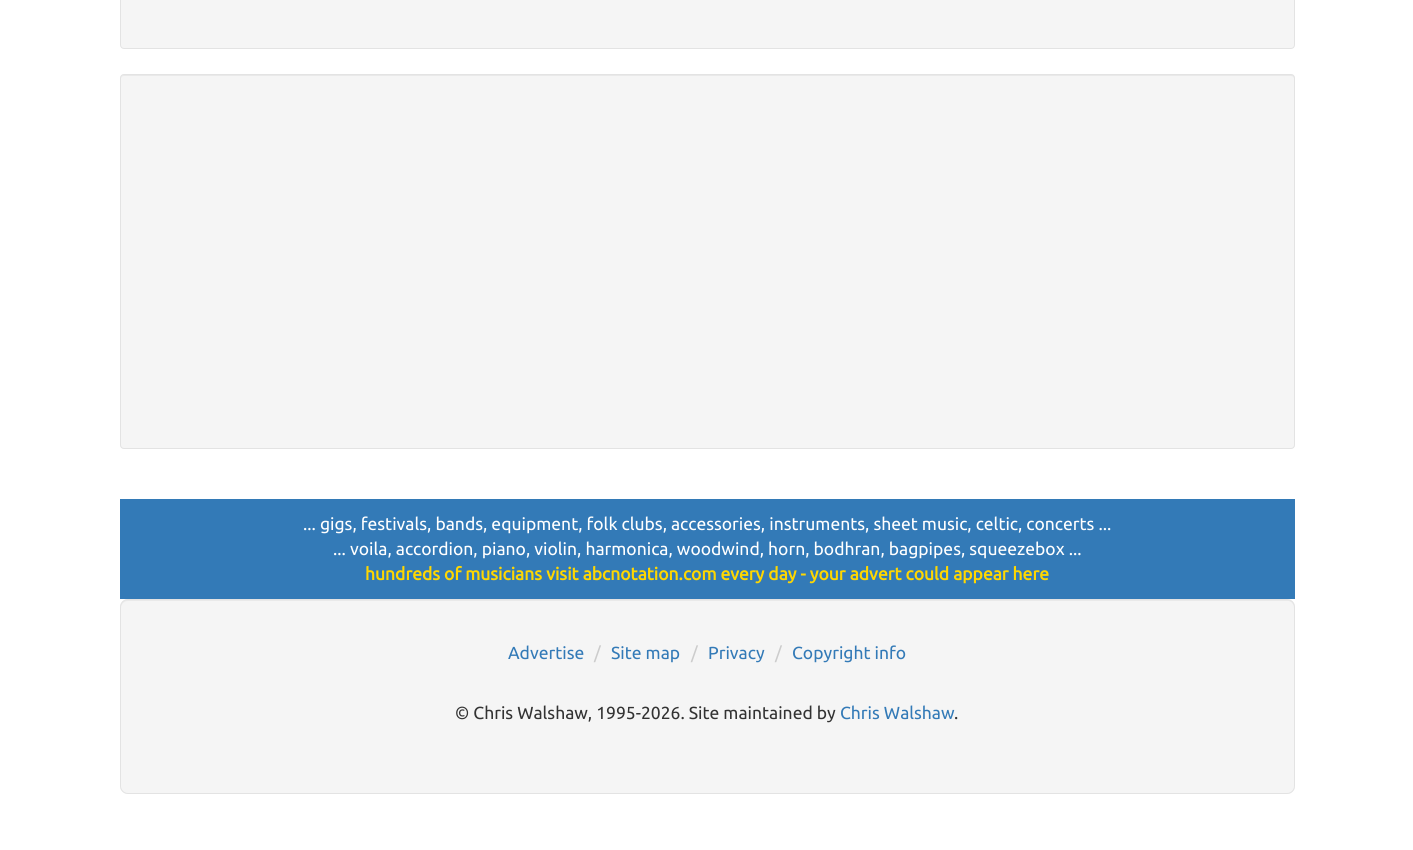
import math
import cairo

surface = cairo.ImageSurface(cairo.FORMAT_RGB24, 1413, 850)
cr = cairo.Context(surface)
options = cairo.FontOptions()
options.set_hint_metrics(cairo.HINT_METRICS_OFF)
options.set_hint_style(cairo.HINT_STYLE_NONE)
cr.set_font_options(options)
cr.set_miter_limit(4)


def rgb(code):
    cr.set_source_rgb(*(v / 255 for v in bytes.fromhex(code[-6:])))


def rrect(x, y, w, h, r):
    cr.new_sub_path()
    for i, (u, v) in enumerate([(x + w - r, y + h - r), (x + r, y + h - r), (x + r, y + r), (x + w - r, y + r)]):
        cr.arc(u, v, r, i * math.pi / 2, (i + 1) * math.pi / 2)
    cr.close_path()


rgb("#ffffff")
cr.paint()
rgb("#f5f5f5")
rrect(120.5, -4.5, 1174, 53, 3.5)
cr.fill_preserve()
rgb("#e3e3e3")
cr.set_line_width(1)
cr.stroke()
rgb("#f5f5f5")
rrect(120, 74, 1175, 375, 4)
cr.fill()
rgb("#e9e9e9")
cr.new_path()
cr.move_to(124, 76)
cr.line_to(1291, 76)
cr.curve_to(1293, 76, 1294, 77, 1294, 79)
cr.curve_to(1294, 77, 1294, 75, 1292, 75)
cr.line_to(124, 75)
cr.curve_to(121, 75, 121, 77, 121, 79)
cr.curve_to(121, 77, 122, 76, 124, 76)
cr.close_path()
cr.fill()
rrect(120.5, 74.5, 1174, 374, 3.5)
rgb("#e3e3e3")
cr.stroke()
rgb("#337ab7")
cr.rectangle(120, 499, 1175, 100)
cr.fill()
rgb("#f5f5f5")
rrect(120, 599, 1175, 195, 8)
cr.fill()
rgb("#e9e9e9")
cr.new_path()
cr.move_to(128, 601)
cr.line_to(1288, 601)
cr.curve_to(1291, 601, 1294, 604, 1294, 608)
cr.line_to(1294, 606)
cr.curve_to(1294, 603, 1291, 600, 1288, 600)
cr.line_to(127, 600)
cr.curve_to(124, 600, 121, 603, 121, 606)
cr.line_to(121, 608)
cr.curve_to(121, 604, 124, 601, 128, 601)
cr.close_path()
cr.fill()
rrect(120.5, 599.5, 1174, 194, 7.5)
rgb("#e3e3e3")
cr.stroke()
cr.select_font_face("Ubuntu")
cr.set_font_size(17.5)
rgb("#ffffff")
cr.move_to(303, 530)
cr.show_text("... gigs, festivals, bands, equipment, folk clubs, accessories, instruments, sheet music, celtic, concerts ...")
cr.move_to(333, 555)
cr.show_text("... voila, accordion, piano, violin, harmonica, woodwind, horn, bodhran, bagpipes, squeezebox ...")
cr.select_font_face("Ubuntu", cairo.FONT_SLANT_NORMAL, cairo.FONT_WEIGHT_BOLD)
rgb("#ffd700")
cr.move_to(365, 580)
cr.show_text("hundreds of musicians visit abcnotation.com every day - your advert could appear here")
cr.select_font_face("Ubuntu")
rgb("#337ab7")
cr.move_to(508, 659)
cr.show_text("Advertise")
rgb("#cccccc")
cr.move_to(594, 659)
cr.show_text("/")
rgb("#337ab7")
cr.move_to(611, 659)
cr.show_text("Site map")
rgb("#cccccc")
cr.move_to(691, 659)
cr.show_text("/")
rgb("#337ab7")
cr.move_to(708, 659)
cr.show_text("Privacy")
rgb("#cccccc")
cr.move_to(775, 659)
cr.show_text("/")
rgb("#337ab7")
cr.move_to(792, 659)
cr.show_text("Copyright info")
rgb("#333333")
cr.move_to(455, 719)
cr.show_text("© Chris Walshaw, 1995-2026. Site maintained by")
rgb("#337ab7")
cr.move_to(840, 719)
cr.show_text("Chris Walshaw")
rgb("#333333")
cr.move_to(954, 719)
cr.show_text(".")
surface.write_to_png("page.png")
